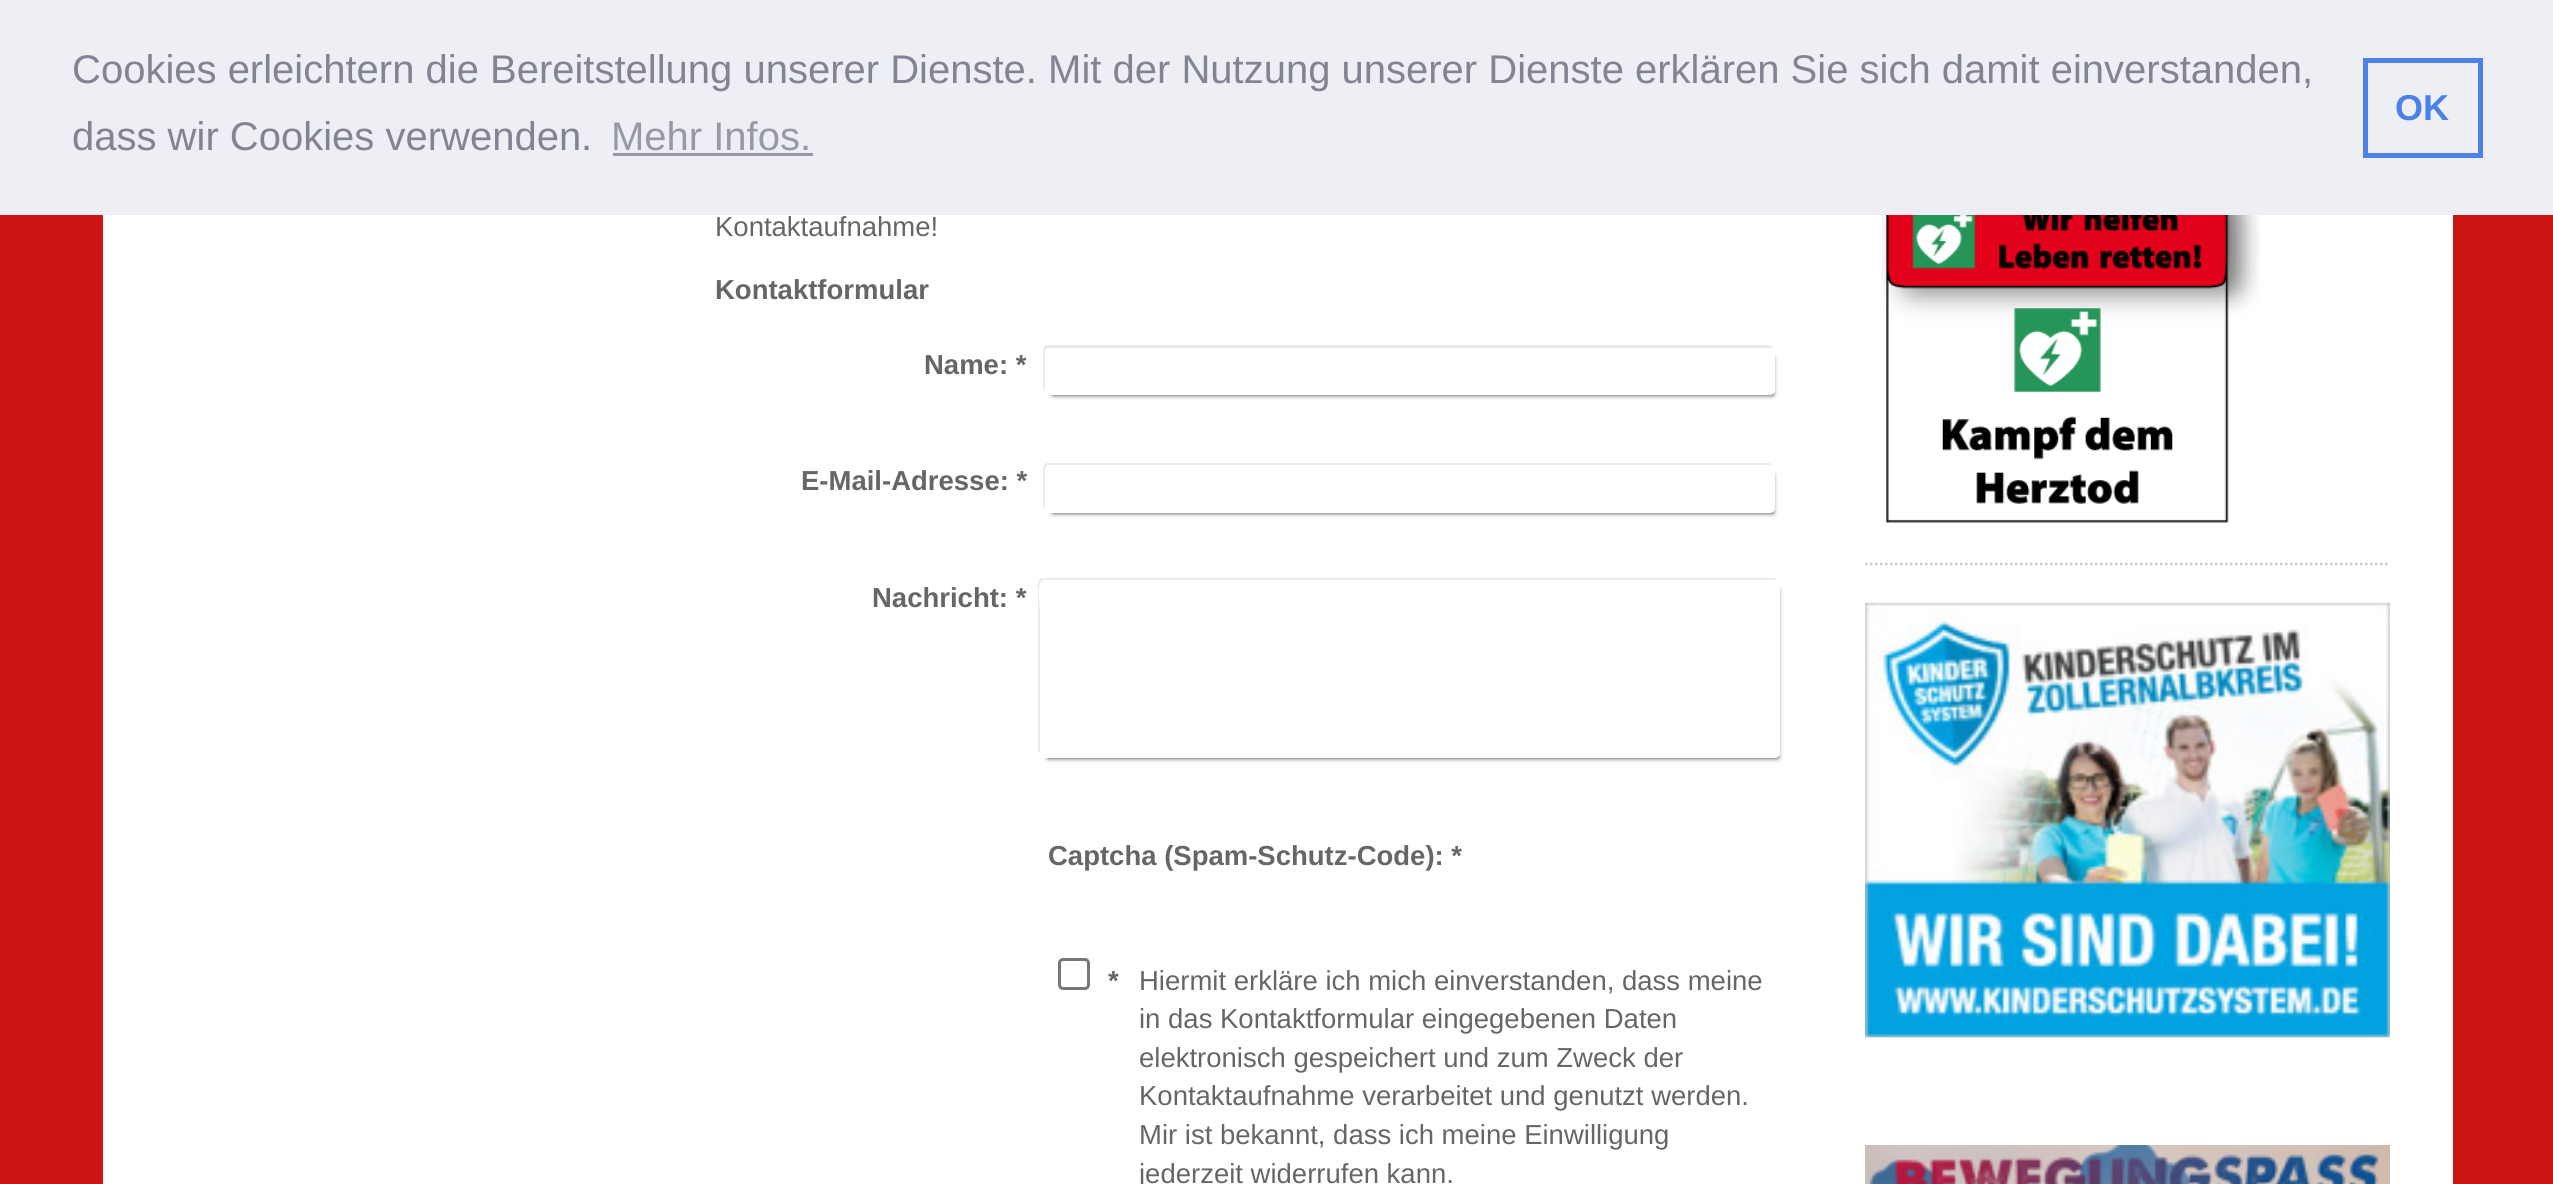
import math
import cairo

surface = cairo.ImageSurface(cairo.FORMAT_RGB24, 2553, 1184)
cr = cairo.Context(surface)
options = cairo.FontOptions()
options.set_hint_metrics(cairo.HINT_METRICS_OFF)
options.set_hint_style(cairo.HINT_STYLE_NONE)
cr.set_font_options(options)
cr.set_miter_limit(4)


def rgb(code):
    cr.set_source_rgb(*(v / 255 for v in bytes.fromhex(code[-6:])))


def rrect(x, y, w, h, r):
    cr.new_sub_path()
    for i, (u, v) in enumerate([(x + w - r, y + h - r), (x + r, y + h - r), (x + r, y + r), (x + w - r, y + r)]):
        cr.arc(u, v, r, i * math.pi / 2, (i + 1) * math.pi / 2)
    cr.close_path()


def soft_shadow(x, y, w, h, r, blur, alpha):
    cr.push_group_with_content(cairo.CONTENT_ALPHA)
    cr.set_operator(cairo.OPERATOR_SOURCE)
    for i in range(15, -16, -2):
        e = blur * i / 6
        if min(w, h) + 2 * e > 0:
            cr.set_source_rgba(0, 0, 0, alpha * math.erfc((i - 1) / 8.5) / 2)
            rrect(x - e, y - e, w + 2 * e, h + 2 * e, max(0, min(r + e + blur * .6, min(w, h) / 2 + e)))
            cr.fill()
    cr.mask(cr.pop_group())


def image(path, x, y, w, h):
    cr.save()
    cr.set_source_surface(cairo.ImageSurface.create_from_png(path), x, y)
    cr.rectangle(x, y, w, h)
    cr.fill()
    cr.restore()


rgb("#cc1512")
cr.paint()
rgb("#edeff5")
cr.rectangle(0, 0, 2553, 215)
cr.fill()
rgb("#9899a5")
cr.rectangle(613, 153, 200, 3)
cr.fill()
cr.rectangle(2365.5, 60.5, 115, 95)
rgb("#4b81e8")
cr.set_line_width(5)
cr.stroke()
rgb("#ffffff")
cr.rectangle(103, 215, 2350, 969)
cr.fill()
rgb("#ebebeb")
cr.new_path()
cr.move_to(1048, 345)
cr.curve_to(1045, 345, 1043, 347, 1043, 350)
cr.line_to(1043, 388)
cr.curve_to(1043, 390, 1044, 392, 1046, 392)
cr.line_to(1045, 390)
cr.line_to(1045, 352)
cr.curve_to(1045, 350, 1047, 348, 1050, 348)
cr.line_to(1770, 348)
cr.line_to(1773, 348)
cr.curve_to(1772, 346, 1770, 345, 1768, 345)
cr.close_path()
cr.fill()
rgb("#000000")
soft_shadow(1053, 358, 720, 37, 0, 2.5, 0.8)
rgb("#ffffff")
rrect(1045, 348, 730, 47, 5)
cr.fill()
rgb("#ebebeb")
cr.new_path()
cr.move_to(1048, 463)
cr.curve_to(1045, 463, 1043, 465, 1043, 468)
cr.line_to(1043, 505)
cr.curve_to(1043, 507, 1044, 508, 1045, 509)
cr.line_to(1045, 470)
cr.curve_to(1045, 467, 1047, 465, 1050, 465)
cr.line_to(1770, 465)
cr.line_to(1772, 466)
cr.curve_to(1772, 464, 1770, 463, 1768, 463)
cr.close_path()
cr.fill()
rgb("#000000")
soft_shadow(1053, 475, 720, 38, 0, 2.5, 0.8)
rgb("#ffffff")
rrect(1045, 465, 730, 48, 5)
cr.fill()
rgb("#ebebeb")
cr.new_path()
cr.move_to(1043, 578)
cr.line_to(1041, 578)
cr.curve_to(1039, 579, 1038, 581, 1038, 583)
cr.line_to(1038, 751)
cr.line_to(1040, 754)
cr.line_to(1040, 613)
cr.curve_to(1040, 603, 1035, 580, 1045, 580)
cr.line_to(1775, 580)
cr.line_to(1777, 581)
cr.curve_to(1777, 579, 1775, 578, 1773, 578)
cr.close_path()
cr.fill()
rgb("#000000")
soft_shadow(1048, 590, 730, 168, 0, 2.5, 0.8)
rgb("#ffffff")
rrect(1040, 580, 740, 178, 5)
cr.fill()
rrect(1059.5, 959.5, 29, 29, 3.5)
rgb("#767676")
cr.set_line_width(3)
cr.stroke()
image("img/1.png", 1881, 215, 379, 308)
cr.new_path()
cr.move_to(1865, 564)
cr.line_to(2390, 564)
rgb("#cccccc")
cr.set_line_width(2.5)
cr.set_dash([2.5, 2.5])
cr.stroke()
image("img/2.png", 1865, 602, 525, 436)
image("img/3.png", 1865, 1145, 525, 39)
cr.select_font_face("Liberation Sans")
cr.set_font_size(40)
rgb("#838391")
cr.move_to(72, 83)
cr.show_text("Cookies erleichtern die Bereitstellung unserer Dienste. Mit der Nutzung unserer Dienste erklären Sie sich damit einverstanden,")
cr.move_to(72, 150)
cr.show_text("dass wir Cookies verwenden.")
rgb("#9899a5")
cr.move_to(611, 150)
cr.show_text("Mehr Infos.")
cr.select_font_face("Liberation Sans", cairo.FONT_SLANT_NORMAL, cairo.FONT_WEIGHT_BOLD)
cr.set_font_size(36)
rgb("#4b81e8")
cr.move_to(2395, 120)
cr.show_text("OK")
cr.select_font_face("Liberation Sans")
cr.set_font_size(27.5)
rgb("#666666")
cr.move_to(715, 236)
cr.show_text("Kontaktaufnahme!")
cr.select_font_face("Liberation Sans", cairo.FONT_SLANT_NORMAL, cairo.FONT_WEIGHT_BOLD)
for x, y, s in [
    (715, 299, "Kontaktformular"),
    (924, 374, "Name: *"),
    (801, 490, "E-Mail-Adresse: *"),
    (872, 607, "Nachricht: *"),
    (1048, 865, "Captcha (Spam-Schutz-Code): *"),
    (1108, 990, "*"),
]:
    cr.move_to(x, y)
    cr.show_text(s)
cr.select_font_face("Liberation Sans")
for x, y, s in [
    (1139, 990, "Hiermit erkläre ich mich einverstanden, dass meine"),
    (1139, 1028, "in das Kontaktformular eingegebenen Daten"),
    (1139, 1067, "elektronisch gespeichert und zum Zweck der"),
    (1139, 1105, "Kontaktaufnahme verarbeitet und genutzt werden."),
    (1139, 1144, "Mir ist bekannt, dass ich meine Einwilligung"),
    (1139, 1183, "jederzeit widerrufen kann."),
]:
    cr.move_to(x, y)
    cr.show_text(s)
surface.write_to_png("page.png")
